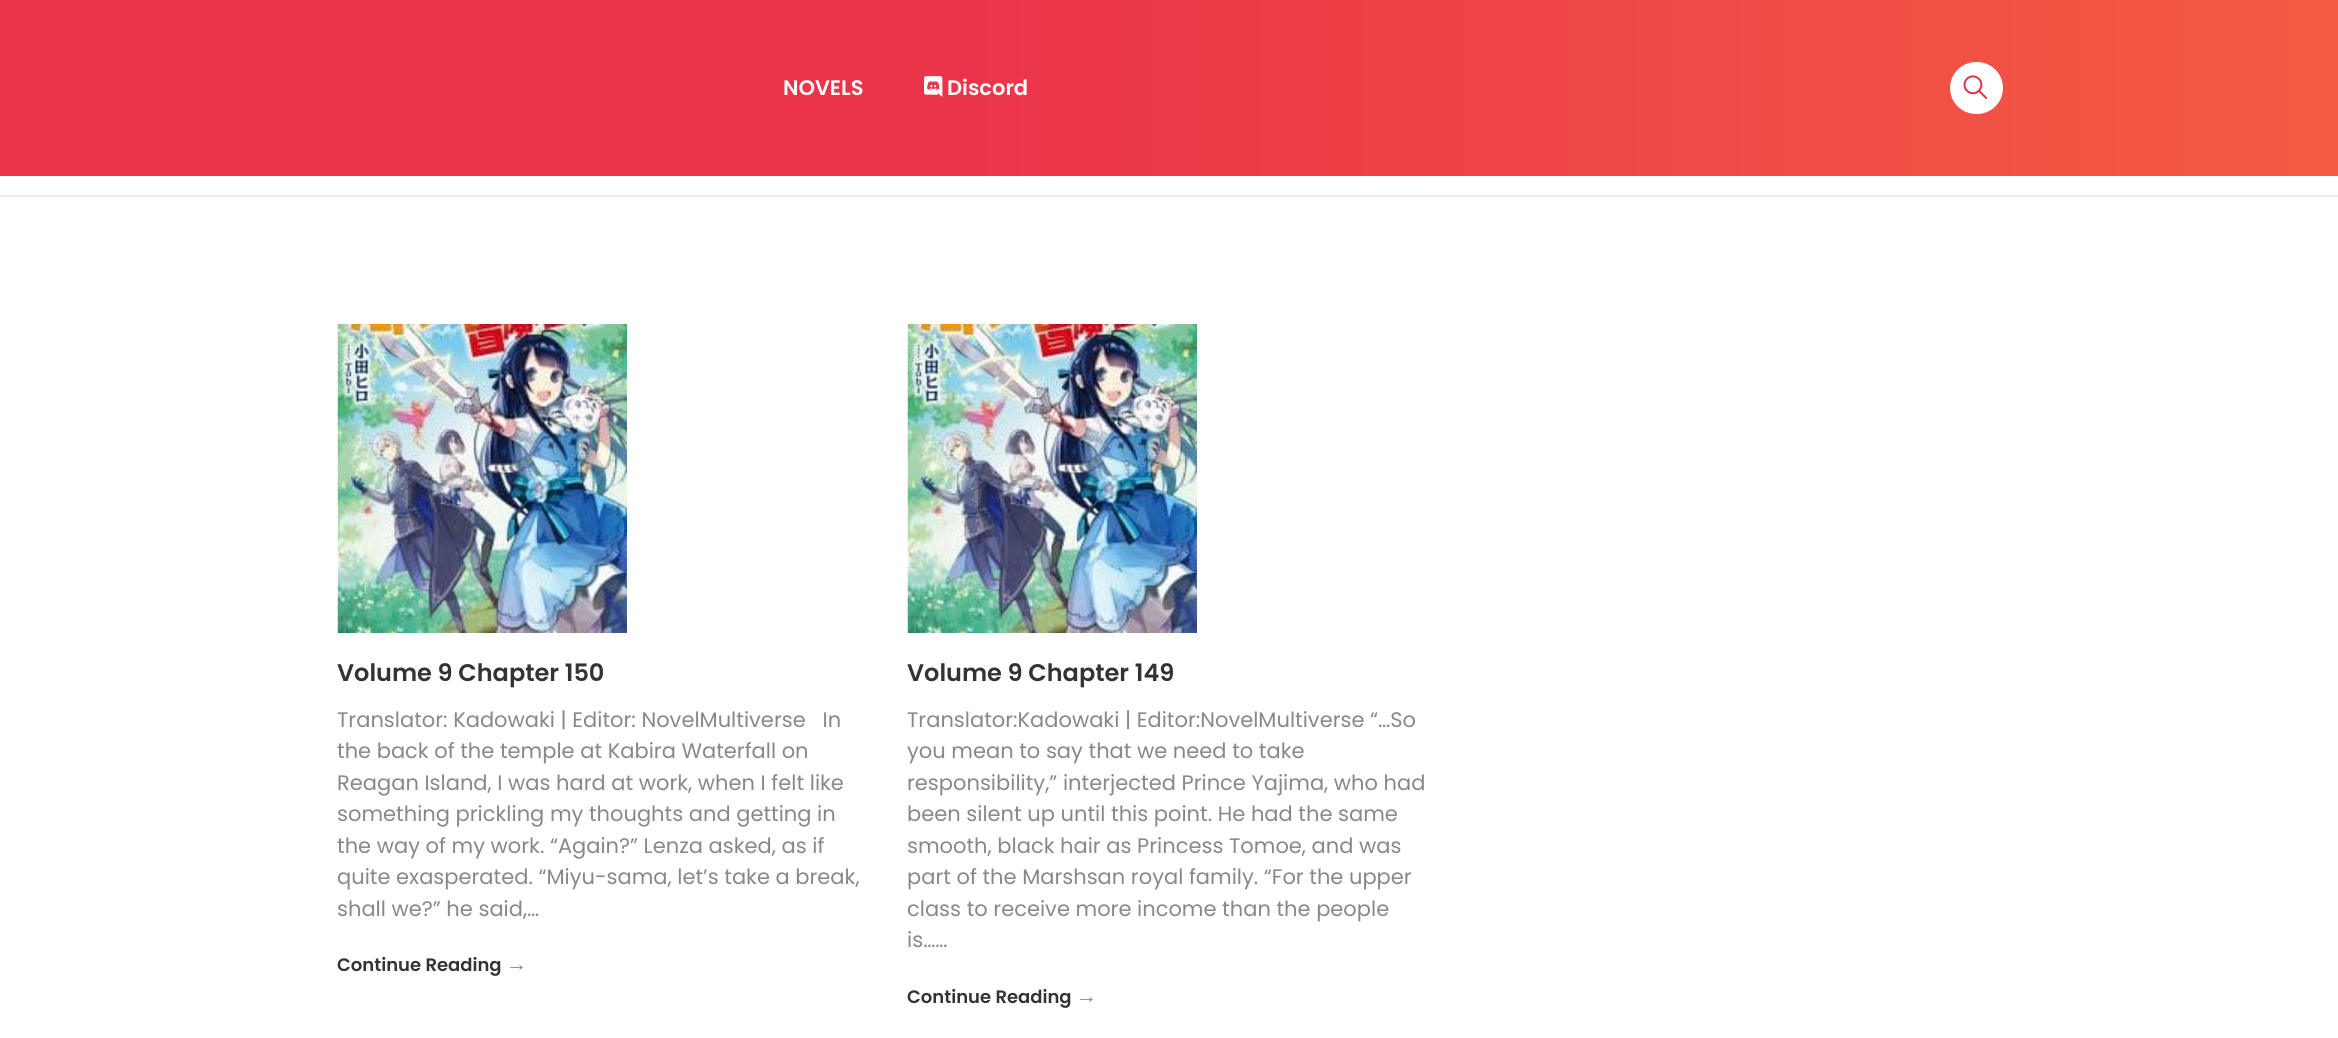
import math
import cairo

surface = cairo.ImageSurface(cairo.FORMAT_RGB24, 2338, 1038)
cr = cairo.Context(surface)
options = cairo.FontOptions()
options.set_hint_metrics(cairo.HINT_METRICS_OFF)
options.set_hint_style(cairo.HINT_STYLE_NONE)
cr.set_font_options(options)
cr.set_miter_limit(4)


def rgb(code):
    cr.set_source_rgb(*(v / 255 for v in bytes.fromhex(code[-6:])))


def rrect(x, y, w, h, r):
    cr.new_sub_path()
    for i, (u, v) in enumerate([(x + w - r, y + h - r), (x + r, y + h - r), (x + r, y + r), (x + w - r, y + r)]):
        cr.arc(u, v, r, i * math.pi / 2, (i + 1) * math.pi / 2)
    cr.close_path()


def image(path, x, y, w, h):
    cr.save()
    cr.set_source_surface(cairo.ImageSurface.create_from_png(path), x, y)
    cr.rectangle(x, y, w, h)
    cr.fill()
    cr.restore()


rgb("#ffffff")
cr.paint()
gradient = cairo.LinearGradient(0, 88, 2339, 88)
gradient.add_color_stop_rgba(0.4, 0.922, 0.2, 0.286, 1)
gradient.add_color_stop_rgba(1, 0.957, 0.361, 0.263, 1)
cr.set_source(gradient)
cr.rectangle(0, 0, 2338, 176)
cr.fill()
image("img/1.png", 924, 76, 19, 21)
rgb("#ffffff")
rrect(1950, 62, 53, 52, 26)
cr.fill()
image("img/2.png", 1963, 75, 25, 24)
rgb("#ebebeb")
cr.rectangle(0, 195, 2338, 2)
cr.fill()
image("img/3.png", 337, 324, 290, 309)
image("img/4.png", 907, 324, 290, 309)
cr.select_font_face("Poppins SemiBold")
cr.set_font_size(21)
rgb("#ffffff")
cr.move_to(783, 95)
cr.show_text("NOVELS")
cr.move_to(947, 95)
cr.show_text("Discord")
cr.set_font_size(24)
rgb("#333333")
cr.move_to(337, 681)
cr.show_text("Volume 9 Chapter 150")
cr.select_font_face("Poppins")
cr.set_font_size(21)
rgb("#888888")
for x, y, s in [
    (337, 727, "Translator: Kadowaki | Editor: NovelMultiverse   In"),
    (337, 758, "the back of the temple at Kabira Waterfall on"),
    (337, 790, "Reagan Island, I was hard at work, when I felt like"),
    (337, 821, "something prickling my thoughts and getting in"),
    (337, 853, "the way of my work. “Again?” Lenza asked, as if"),
    (337, 884, "quite exasperated. “Miyu-sama, let’s take a break,"),
    (337, 916, "shall we?” he said,…"),
]:
    cr.move_to(x, y)
    cr.show_text(s)
cr.select_font_face("Poppins SemiBold")
cr.set_font_size(18)
rgb("#333333")
cr.move_to(337, 971)
cr.show_text("Continue Reading")
cr.select_font_face("Liberation Sans", cairo.FONT_SLANT_NORMAL, cairo.FONT_WEIGHT_BOLD)
cr.set_font_size(21)
rgb("#888888")
cr.move_to(506, 971)
cr.show_text("→")
cr.select_font_face("Poppins SemiBold")
cr.set_font_size(24)
rgb("#333333")
cr.move_to(907, 681)
cr.show_text("Volume 9 Chapter 149")
cr.select_font_face("Poppins")
cr.set_font_size(21)
rgb("#888888")
for x, y, s in [
    (907, 727, "Translator:Kadowaki | Editor:NovelMultiverse “…So"),
    (907, 758, "you mean to say that we need to take"),
    (907, 790, "responsibility,” interjected Prince Yajima, who had"),
    (907, 821, "been silent up until this point. He had the same"),
    (907, 853, "smooth, black hair as Princess Tomoe, and was"),
    (907, 884, "part of the Marshsan royal family. “For the upper"),
    (907, 916, "class to receive more income than the people"),
    (907, 947, "is……"),
]:
    cr.move_to(x, y)
    cr.show_text(s)
cr.select_font_face("Poppins SemiBold")
cr.set_font_size(18)
rgb("#333333")
cr.move_to(907, 1003)
cr.show_text("Continue Reading")
cr.select_font_face("Liberation Sans", cairo.FONT_SLANT_NORMAL, cairo.FONT_WEIGHT_BOLD)
cr.set_font_size(21)
rgb("#888888")
cr.move_to(1076, 1003)
cr.show_text("→")
surface.write_to_png("page.png")
